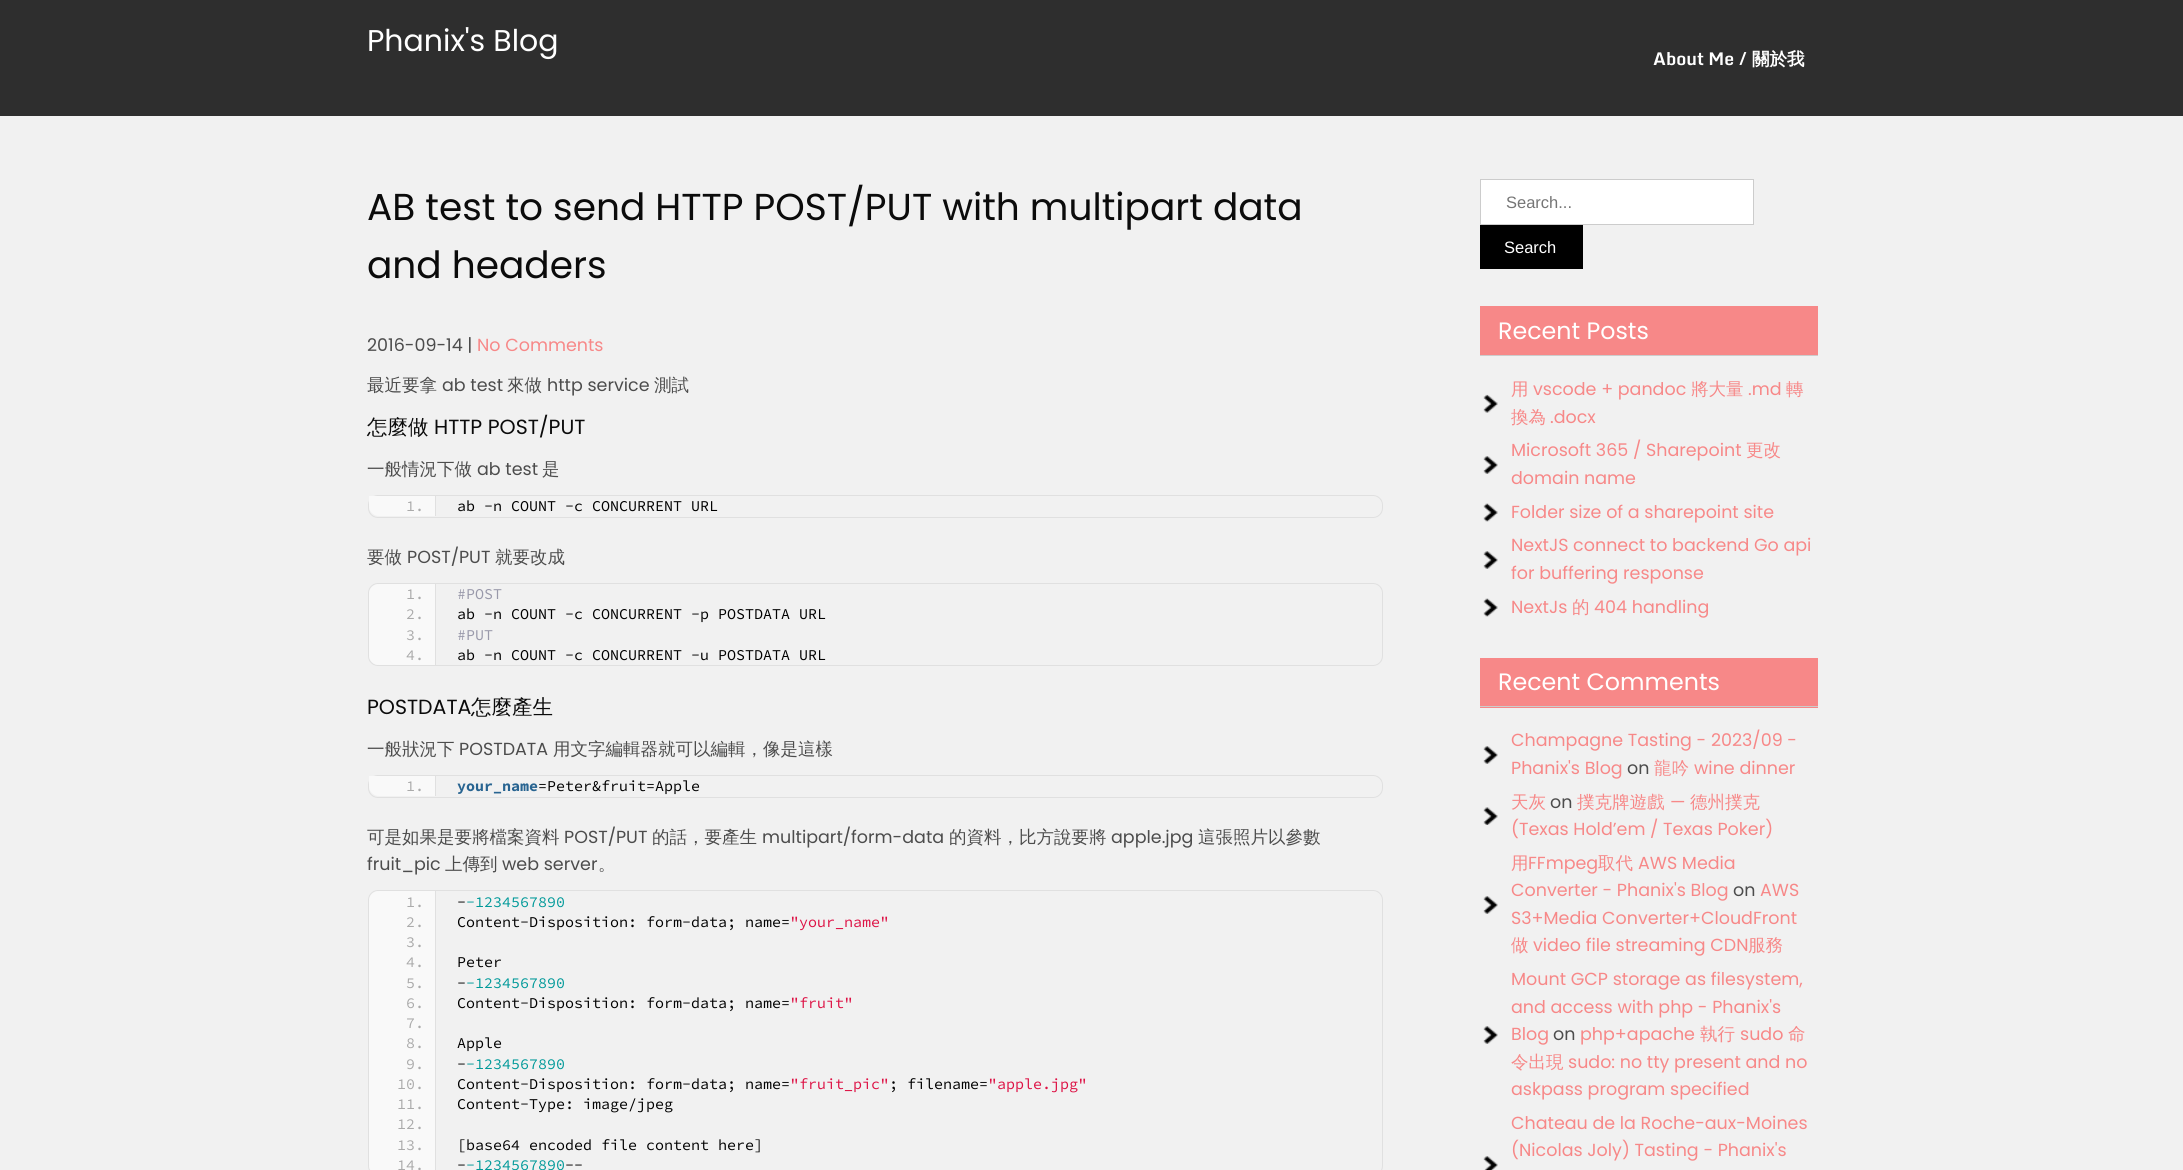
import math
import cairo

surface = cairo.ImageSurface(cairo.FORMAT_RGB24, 2183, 1170)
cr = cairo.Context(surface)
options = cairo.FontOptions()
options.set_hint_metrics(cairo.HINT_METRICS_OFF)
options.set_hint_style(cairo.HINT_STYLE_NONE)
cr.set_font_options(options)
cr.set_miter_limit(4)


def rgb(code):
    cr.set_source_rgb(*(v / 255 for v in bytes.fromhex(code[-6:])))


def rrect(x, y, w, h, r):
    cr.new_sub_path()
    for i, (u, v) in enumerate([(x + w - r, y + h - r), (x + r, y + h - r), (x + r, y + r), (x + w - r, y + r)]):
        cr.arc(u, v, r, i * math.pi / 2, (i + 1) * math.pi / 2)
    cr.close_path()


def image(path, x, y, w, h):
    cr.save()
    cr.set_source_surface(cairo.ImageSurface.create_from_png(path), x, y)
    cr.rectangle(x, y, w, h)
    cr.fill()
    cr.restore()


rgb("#f1f1f1")
cr.paint()
rgb("#2e2e2e")
cr.rectangle(0, 0, 2183, 116)
cr.fill()
rrect(368.5, 495.5, 1014, 22, 9.5)
rgb("#e0e0e0")
cr.set_line_width(1)
cr.stroke()
rgb("#f9f9f9")
cr.new_path()
cr.move_to(369, 496)
cr.line_to(435, 496)
cr.line_to(435, 516)
cr.line_to(379, 516)
cr.curve_to(373.5, 516, 369, 511.5, 369, 506)
cr.close_path()
cr.fill()
rgb("#e0e0e0")
cr.rectangle(435, 496, 1, 20)
cr.fill()
rrect(368.5, 583.5, 1014, 82, 9.5)
cr.stroke()
rgb("#f9f9f9")
cr.new_path()
cr.move_to(379, 584)
cr.line_to(435, 584)
cr.line_to(435, 604)
cr.line_to(369, 604)
cr.line_to(369, 594)
cr.curve_to(369, 588.5, 373.5, 584, 379, 584)
cr.close_path()
cr.fill()
cr.rectangle(369, 604, 66, 41)
cr.fill()
cr.new_path()
cr.move_to(369, 645)
cr.line_to(435, 645)
cr.line_to(435, 665)
cr.line_to(379, 665)
cr.curve_to(373.5, 665, 369, 660.5, 369, 655)
cr.close_path()
cr.fill()
rgb("#e0e0e0")
cr.rectangle(435, 584, 1, 81)
cr.fill()
rrect(368.5, 775.5, 1014, 22, 9.5)
cr.stroke()
rgb("#f9f9f9")
cr.new_path()
cr.move_to(369, 776)
cr.line_to(435, 776)
cr.line_to(435, 796)
cr.line_to(379, 796)
cr.curve_to(373.5, 796, 369, 791.5, 369, 786)
cr.close_path()
cr.fill()
rgb("#e0e0e0")
cr.rectangle(435, 776, 1, 20)
cr.fill()
rrect(368.5, 890.5, 1014, 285, 9.5)
cr.stroke()
rgb("#f9f9f9")
cr.new_path()
cr.move_to(379, 891)
cr.line_to(435, 891)
cr.line_to(435, 911)
cr.line_to(369, 911)
cr.line_to(369, 901)
cr.curve_to(369, 895.5, 373.5, 891, 379, 891)
cr.close_path()
cr.fill()
cr.rectangle(369, 911, 66, 244)
cr.fill()
cr.new_path()
cr.move_to(369, 1155)
cr.line_to(435, 1155)
cr.line_to(435, 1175)
cr.line_to(379, 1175)
cr.curve_to(373.5, 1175, 369, 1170.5, 369, 1165)
cr.close_path()
cr.fill()
rgb("#e0e0e0")
cr.rectangle(435, 891, 1, 279)
cr.fill()
rgb("#ffffff")
cr.rectangle(1480.5, 179.5, 273, 45)
cr.fill_preserve()
rgb("#cccccc")
cr.stroke()
for x, y, w, h, color in [
    (1480, 225, 103, 44, "#000000"),
    (1480, 306, 338, 49, "#f78888"),
    (1480, 355, 338, 1, "#cccccc"),
]:
    rgb(color)
    cr.rectangle(x, y, w, h)
    cr.fill()
image("img/1.png", 1483, 394, 15, 19)
image("img/2.png", 1483, 456, 15, 18)
image("img/3.png", 1483, 503, 15, 19)
image("img/2.png", 1483, 551, 15, 18)
image("img/3.png", 1483, 598, 15, 19)
rgb("#f78888")
cr.rectangle(1480, 658, 338, 50)
cr.fill()
rgb("#cccccc")
cr.rectangle(1480, 706, 338, 1)
cr.fill()
image("img/2.png", 1483, 746, 15, 18)
image("img/4.png", 1483, 807, 15, 18)
image("img/2.png", 1483, 896, 15, 18)
image("img/5.png", 1483, 1026, 15, 18)
image("img/6.png", 1483, 1156, 15, 14)
cr.select_font_face("Poppins")
cr.set_font_size(30)
rgb("#ffffff")
cr.move_to(367, 51)
cr.show_text("Phanix's Blog")
cr.select_font_face("Monda", cairo.FONT_SLANT_NORMAL, cairo.FONT_WEIGHT_BOLD)
cr.set_font_size(17.5)
cr.move_to(1653, 65)
cr.show_text("About Me /")
cr.select_font_face("WenQuanYi Zen Hei", cairo.FONT_SLANT_NORMAL, cairo.FONT_WEIGHT_BOLD)
cr.move_to(1752, 65)
cr.show_text("關於我")
cr.select_font_face("Poppins")
cr.set_font_size(37.5)
rgb("#0b0b0b")
cr.move_to(367, 220)
cr.show_text("AB test to send HTTP POST/PUT with multipart data")
cr.move_to(367, 278)
cr.show_text("and headers")
cr.set_font_size(17.5)
rgb("#4c4c4c")
cr.move_to(367, 351)
cr.show_text("2016-09-14 |")
rgb("#f78888")
cr.move_to(477, 351)
cr.show_text("No Comments")
cr.select_font_face("WenQuanYi Zen Hei Medium")
rgb("#4c4c4c")
cr.move_to(367, 391)
cr.show_text("最近要拿")
cr.select_font_face("Poppins")
cr.move_to(442, 391)
cr.show_text("ab test")
cr.select_font_face("WenQuanYi Zen Hei Medium")
cr.move_to(507, 391)
cr.show_text("來做")
cr.select_font_face("Poppins")
cr.move_to(547, 391)
cr.show_text("http service")
cr.select_font_face("WenQuanYi Zen Hei Medium")
cr.move_to(654, 391)
cr.show_text("測試")
cr.set_font_size(20.5)
rgb("#0b0b0b")
cr.move_to(367, 434)
cr.show_text("怎麼做")
cr.select_font_face("Poppins")
cr.move_to(434, 434)
cr.show_text("HTTP POST/PUT")
cr.select_font_face("WenQuanYi Zen Hei Medium")
cr.set_font_size(17.5)
rgb("#4c4c4c")
cr.move_to(367, 475)
cr.show_text("一般情況下做")
cr.select_font_face("Poppins")
cr.move_to(477, 475)
cr.show_text("ab test")
cr.select_font_face("WenQuanYi Zen Hei Medium")
cr.move_to(542, 475)
cr.show_text("是")
cr.select_font_face("Source Code Pro")
cr.set_font_size(15)
rgb("#aaaaaa")
cr.move_to(406, 511)
cr.show_text("1.")
rgb("#000000")
cr.move_to(457, 511)
cr.show_text("ab -n COUNT -c CONCURRENT URL")
cr.select_font_face("WenQuanYi Zen Hei Medium")
cr.set_font_size(17.5)
rgb("#4c4c4c")
cr.move_to(367, 563)
cr.show_text("要做")
cr.select_font_face("Poppins")
cr.move_to(407, 563)
cr.show_text("POST/PUT")
cr.select_font_face("WenQuanYi Zen Hei Medium")
cr.move_to(495, 563)
cr.show_text("就要改成")
cr.select_font_face("Source Code Pro")
cr.set_font_size(15)
rgb("#aaaaaa")
cr.move_to(406, 599)
cr.show_text("1.")
rgb("#9999aa")
cr.move_to(457, 599)
cr.show_text("#POST")
rgb("#aaaaaa")
cr.move_to(406, 619)
cr.show_text("2.")
rgb("#000000")
cr.move_to(457, 619)
cr.show_text("ab -n COUNT -c CONCURRENT -p POSTDATA URL")
rgb("#aaaaaa")
cr.move_to(406, 640)
cr.show_text("3.")
rgb("#9999aa")
cr.move_to(457, 640)
cr.show_text("#PUT")
rgb("#aaaaaa")
cr.move_to(406, 660)
cr.show_text("4.")
rgb("#000000")
cr.move_to(457, 660)
cr.show_text("ab -n COUNT -c CONCURRENT -u POSTDATA URL")
cr.select_font_face("Poppins")
cr.set_font_size(20.5)
rgb("#0b0b0b")
cr.move_to(367, 714)
cr.show_text("POSTDATA")
cr.select_font_face("WenQuanYi Zen Hei Medium")
cr.move_to(471, 714)
cr.show_text("怎麼產生")
cr.set_font_size(17.5)
rgb("#4c4c4c")
cr.move_to(367, 755)
cr.show_text("一般狀況下")
cr.select_font_face("Poppins")
cr.move_to(459, 755)
cr.show_text("POSTDATA")
cr.select_font_face("WenQuanYi Zen Hei Medium")
cr.move_to(553, 755)
cr.show_text("用文字編輯器就可以編輯，像是這樣")
cr.select_font_face("Source Code Pro")
cr.set_font_size(15)
rgb("#aaaaaa")
cr.move_to(406, 791)
cr.show_text("1.")
cr.select_font_face("Source Code Pro", cairo.FONT_SLANT_NORMAL, cairo.FONT_WEIGHT_BOLD)
rgb("#286491")
cr.move_to(457, 791)
cr.show_text("your_name")
cr.select_font_face("Source Code Pro")
rgb("#000000")
cr.move_to(538, 791)
cr.show_text("=Peter&fruit=Apple")
cr.select_font_face("WenQuanYi Zen Hei Medium")
cr.set_font_size(17.5)
rgb("#4c4c4c")
cr.move_to(367, 843)
cr.show_text("可是如果是要將檔案資料")
cr.select_font_face("Poppins")
cr.move_to(564, 843)
cr.show_text("POST/PUT")
cr.select_font_face("WenQuanYi Zen Hei Medium")
cr.move_to(652, 843)
cr.show_text("的話，要產生")
cr.select_font_face("Poppins")
cr.move_to(762, 843)
cr.show_text("multipart/form-data")
cr.select_font_face("WenQuanYi Zen Hei Medium")
cr.move_to(949, 843)
cr.show_text("的資料，比方說要將")
cr.select_font_face("Poppins")
cr.move_to(1111, 843)
cr.show_text("apple.jpg")
cr.select_font_face("WenQuanYi Zen Hei Medium")
cr.move_to(1198, 843)
cr.show_text("這張照片以參數")
cr.select_font_face("Poppins")
cr.move_to(367, 870)
cr.show_text("fruit_pic")
cr.select_font_face("WenQuanYi Zen Hei Medium")
cr.move_to(445, 870)
cr.show_text("上傳到")
cr.select_font_face("Poppins")
cr.move_to(502, 870)
cr.show_text("web server")
cr.select_font_face("WenQuanYi Zen Hei Medium")
cr.move_to(598, 870)
cr.show_text("。")
cr.select_font_face("Source Code Pro")
cr.set_font_size(15)
rgb("#aaaaaa")
cr.move_to(406, 907)
cr.show_text("1.")
rgb("#000000")
cr.move_to(457, 907)
cr.show_text("-")
rgb("#009999")
cr.move_to(466, 907)
cr.show_text("-1234567890")
rgb("#aaaaaa")
cr.move_to(406, 927)
cr.show_text("2.")
rgb("#000000")
cr.move_to(457, 927)
cr.show_text("Content-Disposition: form-data; name=")
rgb("#dd1144")
cr.move_to(790, 927)
cr.show_text("\"your_name\"")
rgb("#aaaaaa")
cr.move_to(406, 947)
cr.show_text("3.")
cr.move_to(406, 967)
cr.show_text("4.")
rgb("#000000")
cr.move_to(457, 967)
cr.show_text("Peter")
rgb("#aaaaaa")
cr.move_to(406, 988)
cr.show_text("5.")
rgb("#000000")
cr.move_to(457, 988)
cr.show_text("-")
rgb("#009999")
cr.move_to(466, 988)
cr.show_text("-1234567890")
rgb("#aaaaaa")
cr.move_to(406, 1008)
cr.show_text("6.")
rgb("#000000")
cr.move_to(457, 1008)
cr.show_text("Content-Disposition: form-data; name=")
rgb("#dd1144")
cr.move_to(790, 1008)
cr.show_text("\"fruit\"")
rgb("#aaaaaa")
cr.move_to(406, 1028)
cr.show_text("7.")
cr.move_to(406, 1048)
cr.show_text("8.")
rgb("#000000")
cr.move_to(457, 1048)
cr.show_text("Apple")
rgb("#aaaaaa")
cr.move_to(406, 1069)
cr.show_text("9.")
rgb("#000000")
cr.move_to(457, 1069)
cr.show_text("-")
rgb("#009999")
cr.move_to(466, 1069)
cr.show_text("-1234567890")
rgb("#aaaaaa")
cr.move_to(397, 1089)
cr.show_text("10.")
rgb("#000000")
cr.move_to(457, 1089)
cr.show_text("Content-Disposition: form-data; name=")
rgb("#dd1144")
cr.move_to(790, 1089)
cr.show_text("\"fruit_pic\"")
rgb("#000000")
cr.move_to(889, 1089)
cr.show_text("; filename=")
rgb("#dd1144")
cr.move_to(988, 1089)
cr.show_text("\"apple.jpg\"")
rgb("#aaaaaa")
cr.move_to(397, 1109)
cr.show_text("11.")
rgb("#000000")
cr.move_to(457, 1109)
cr.show_text("Content-Type: image/jpeg")
rgb("#aaaaaa")
cr.move_to(397, 1129)
cr.show_text("12.")
cr.move_to(397, 1150)
cr.show_text("13.")
rgb("#000000")
cr.move_to(457, 1150)
cr.show_text("[base64 encoded file content here]")
rgb("#aaaaaa")
cr.move_to(397, 1170)
cr.show_text("14.")
rgb("#000000")
cr.move_to(457, 1170)
cr.show_text("-")
rgb("#009999")
cr.move_to(466, 1170)
cr.show_text("-1234567890")
rgb("#000000")
cr.move_to(565, 1170)
cr.show_text("--")
cr.select_font_face("Liberation Sans")
cr.set_font_size(16.5)
rgb("#757575")
cr.move_to(1506, 208)
cr.show_text("Search...")
rgb("#ffffff")
cr.move_to(1504, 253)
cr.show_text("Search")
cr.select_font_face("Poppins")
cr.set_font_size(23.75)
cr.move_to(1498, 339)
cr.show_text("Recent Posts")
cr.select_font_face("WenQuanYi Zen Hei Medium")
cr.set_font_size(17.5)
rgb("#f78888")
cr.move_to(1511, 395)
cr.show_text("用")
cr.select_font_face("Poppins")
cr.move_to(1533, 395)
cr.show_text("vscode + pandoc")
cr.select_font_face("WenQuanYi Zen Hei Medium")
cr.move_to(1691, 395)
cr.show_text("將大量")
cr.select_font_face("Poppins")
cr.move_to(1748, 395)
cr.show_text(".md")
cr.select_font_face("WenQuanYi Zen Hei Medium")
cr.move_to(1786, 395)
cr.show_text("轉")
cr.move_to(1511, 423)
cr.show_text("換為")
cr.select_font_face("Poppins")
cr.move_to(1550, 423)
cr.show_text(".docx")
cr.move_to(1511, 456)
cr.show_text("Microsoft 365 / Sharepoint")
cr.select_font_face("WenQuanYi Zen Hei Medium")
cr.move_to(1746, 456)
cr.show_text("更改")
cr.select_font_face("Poppins")
for x, y, s in [
    (1511, 484, "domain name"),
    (1511, 518, "Folder size of a sharepoint site"),
    (1511, 551, "NextJS connect to backend Go api"),
    (1511, 579, "for buffering response"),
    (1511, 613, "NextJs"),
]:
    cr.move_to(x, y)
    cr.show_text(s)
cr.select_font_face("WenQuanYi Zen Hei Medium")
cr.move_to(1572, 613)
cr.show_text("的")
cr.select_font_face("Poppins")
cr.move_to(1594, 613)
cr.show_text("404 handling")
cr.set_font_size(23.75)
rgb("#ffffff")
cr.move_to(1498, 690)
cr.show_text("Recent Comments")
cr.set_font_size(17.5)
rgb("#f78888")
cr.move_to(1511, 746)
cr.show_text("Champagne Tasting - 2023/09 -")
cr.move_to(1511, 774)
cr.show_text("Phanix's Blog")
rgb("#4c4c4c")
cr.move_to(1627, 774)
cr.show_text("on")
cr.select_font_face("WenQuanYi Zen Hei Medium")
rgb("#f78888")
cr.move_to(1654, 774)
cr.show_text("龍吟")
cr.select_font_face("Poppins")
cr.move_to(1694, 774)
cr.show_text("wine dinner")
cr.select_font_face("WenQuanYi Zen Hei Medium")
cr.move_to(1511, 808)
cr.show_text("天灰")
cr.select_font_face("Poppins")
rgb("#4c4c4c")
cr.move_to(1550, 808)
cr.show_text("on")
cr.select_font_face("WenQuanYi Zen Hei Medium")
rgb("#f78888")
cr.move_to(1577, 808)
cr.show_text("撲克牌遊戲")
cr.select_font_face("Poppins")
cr.move_to(1670, 808)
cr.show_text("—")
cr.select_font_face("WenQuanYi Zen Hei Medium")
cr.move_to(1690, 808)
cr.show_text("德州撲克")
cr.select_font_face("Poppins")
cr.move_to(1511, 835)
cr.show_text("(Texas Hold’em / Texas Poker)")
cr.select_font_face("WenQuanYi Zen Hei Medium")
cr.move_to(1511, 869)
cr.show_text("用")
cr.select_font_face("Poppins")
cr.move_to(1528, 869)
cr.show_text("FFmpeg")
cr.select_font_face("WenQuanYi Zen Hei Medium")
cr.move_to(1598, 869)
cr.show_text("取代")
cr.select_font_face("Poppins")
cr.move_to(1638, 869)
cr.show_text("AWS Media")
cr.move_to(1511, 896)
cr.show_text("Converter - Phanix's Blog")
rgb("#4c4c4c")
cr.move_to(1733, 896)
cr.show_text("on")
rgb("#f78888")
cr.move_to(1760, 896)
cr.show_text("AWS")
cr.move_to(1511, 924)
cr.show_text("S3+Media Converter+CloudFront")
cr.select_font_face("WenQuanYi Zen Hei Medium")
cr.move_to(1511, 951)
cr.show_text("做")
cr.select_font_face("Poppins")
cr.move_to(1533, 951)
cr.show_text("video file streaming CDN")
cr.select_font_face("WenQuanYi Zen Hei Medium")
cr.move_to(1748, 951)
cr.show_text("服務")
cr.select_font_face("Poppins")
for x, y, s in [
    (1511, 985, "Mount GCP storage as filesystem,"),
    (1511, 1013, "and access with php - Phanix's"),
    (1511, 1040, "Blog"),
]:
    cr.move_to(x, y)
    cr.show_text(s)
rgb("#4c4c4c")
cr.move_to(1553, 1040)
cr.show_text("on")
rgb("#f78888")
cr.move_to(1580, 1040)
cr.show_text("php+apache")
cr.select_font_face("WenQuanYi Zen Hei Medium")
cr.move_to(1700, 1040)
cr.show_text("執行")
cr.select_font_face("Poppins")
cr.move_to(1740, 1040)
cr.show_text("sudo")
cr.select_font_face("WenQuanYi Zen Hei Medium")
cr.move_to(1788, 1040)
cr.show_text("命")
cr.move_to(1511, 1068)
cr.show_text("令出現")
cr.select_font_face("Poppins")
for x, y, s in [
    (1568, 1068, "sudo: no tty present and no"),
    (1511, 1095, "askpass program specified"),
    (1511, 1129, "Chateau de la Roche-aux-Moines"),
    (1511, 1156, "(Nicolas Joly) Tasting - Phanix's"),
]:
    cr.move_to(x, y)
    cr.show_text(s)
surface.write_to_png("page.png")
